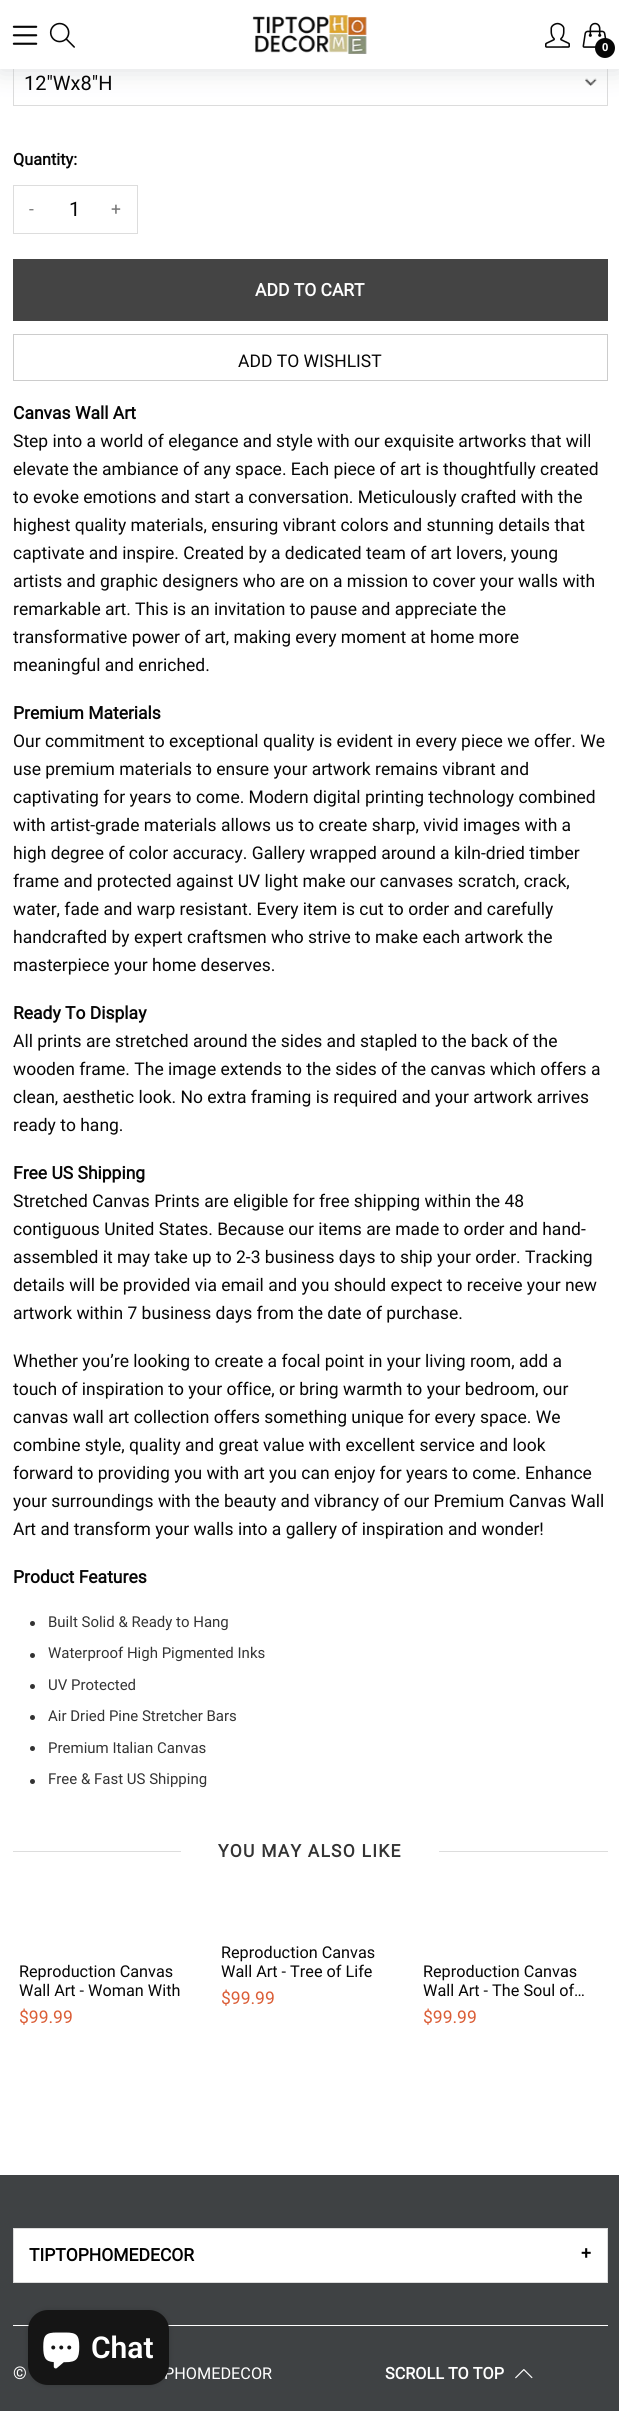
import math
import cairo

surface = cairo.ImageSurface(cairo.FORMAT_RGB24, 619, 2411)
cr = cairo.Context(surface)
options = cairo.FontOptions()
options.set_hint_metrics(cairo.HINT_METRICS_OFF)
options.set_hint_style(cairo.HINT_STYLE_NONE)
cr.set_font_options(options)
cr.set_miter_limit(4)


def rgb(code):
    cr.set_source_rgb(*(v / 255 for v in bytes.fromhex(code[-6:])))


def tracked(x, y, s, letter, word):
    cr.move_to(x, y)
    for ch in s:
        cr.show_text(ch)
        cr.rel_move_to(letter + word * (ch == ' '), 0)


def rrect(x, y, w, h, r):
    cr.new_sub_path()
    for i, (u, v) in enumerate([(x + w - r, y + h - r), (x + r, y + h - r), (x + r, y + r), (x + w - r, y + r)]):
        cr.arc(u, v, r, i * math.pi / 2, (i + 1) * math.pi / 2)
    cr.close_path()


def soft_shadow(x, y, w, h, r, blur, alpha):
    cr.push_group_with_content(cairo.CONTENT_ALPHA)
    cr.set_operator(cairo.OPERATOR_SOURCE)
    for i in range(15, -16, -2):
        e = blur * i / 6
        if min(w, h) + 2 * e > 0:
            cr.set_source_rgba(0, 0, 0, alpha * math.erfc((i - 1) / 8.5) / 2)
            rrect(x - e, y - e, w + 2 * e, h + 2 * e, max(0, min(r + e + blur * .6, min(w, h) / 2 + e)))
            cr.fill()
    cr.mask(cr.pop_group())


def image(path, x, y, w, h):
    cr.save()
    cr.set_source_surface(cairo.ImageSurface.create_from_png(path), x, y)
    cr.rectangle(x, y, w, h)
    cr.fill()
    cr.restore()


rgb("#ffffff")
cr.paint()
image("img/6.png", 585, 78, 12, 8)
cr.rectangle(13.5, 58.5, 594, 47)
rgb("#dcdcdc")
cr.set_line_width(1)
cr.stroke()
rgb("#babfc2")
soft_shadow(0, 1, 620, 69, 0, 12.5, 0.5)
rgb("#ffffff")
cr.rectangle(0, 0, 619, 69)
cr.fill()
image("img/1.png", 12, 25, 26, 20)
image("img/2.png", 49, 22, 26, 26)
image("img/3.png", 252, 15, 115, 39)
image("img/4.png", 545, 22, 25, 26)
image("img/5.png", 582, 22, 25, 26)
rgb("#060606")
cr.arc(605, 48, 10, 0, 2 * math.pi)
cr.fill()
cr.rectangle(13.5, 185.5, 124, 48)
rgb("#dddddd")
cr.stroke()
rgb("#444444")
cr.rectangle(13, 259, 595, 62)
cr.fill()
cr.rectangle(13.5, 334.5, 594, 46)
rgb("#cccccc")
cr.stroke()
rgb("#333333")
cr.arc(32.5, 1623.5, 2.5, 0, 2 * math.pi)
cr.fill()
cr.arc(32.5, 1655.5, 2.5, 0, 2 * math.pi)
cr.fill()
cr.arc(32.5, 1686.5, 2.5, 0, 2 * math.pi)
cr.fill()
cr.arc(32.5, 1717.5, 2.5, 0, 2 * math.pi)
cr.fill()
cr.arc(32.5, 1748.5, 2.5, 0, 2 * math.pi)
cr.fill()
cr.arc(32.5, 1781.5, 2.5, 0, 2 * math.pi)
cr.fill()
for x, y, w, h, color in [
    (13, 1851, 595, 1, "#dddddd"),
    (181, 1851, 258, 1, "#ffffff"),
    (0, 2175, 619, 236, "#3f4244"),
]:
    rgb(color)
    cr.rectangle(x, y, w, h)
    cr.fill()
rgb("#ffffff")
cr.rectangle(13.5, 2228.5, 594, 54)
cr.fill_preserve()
rgb("#dcdcdc")
cr.stroke()
rgb("#ffffff")
cr.rectangle(13, 2325, 595, 1)
cr.fill()
image("img/7.png", 515, 2369, 18, 10)
rgb("#000000")
soft_shadow(28, 2310, 141, 75, 20, 3, 0.15)
cr.select_font_face("Open Sans", cairo.FONT_SLANT_NORMAL, cairo.FONT_WEIGHT_BOLD)
cr.set_font_size(11)
rgb("#ffffff")
cr.move_to(602, 51)
cr.show_text("0")
cr.select_font_face("Roboto")
cr.set_font_size(20)
rgb("#060606")
cr.move_to(24, 90)
cr.show_text("12\"Wx8\"H")
cr.select_font_face("Roboto", cairo.FONT_SLANT_NORMAL, cairo.FONT_WEIGHT_BOLD)
cr.set_font_size(16.25)
cr.move_to(13, 165)
cr.show_text("Quantity:")
cr.select_font_face("Roboto")
cr.set_font_size(17.5)
rgb("#777777")
cr.move_to(29, 215)
cr.show_text("-")
cr.set_font_size(20)
rgb("#060606")
cr.move_to(69, 216)
cr.show_text("1")
cr.set_font_size(17.5)
rgb("#777777")
cr.move_to(111, 215)
cr.show_text("+")
cr.select_font_face("Roboto", cairo.FONT_SLANT_NORMAL, cairo.FONT_WEIGHT_BOLD)
rgb("#ffffff")
cr.move_to(255, 296)
cr.show_text("ADD TO CART")
cr.select_font_face("Roboto")
rgb("#060606")
cr.move_to(238, 367)
cr.show_text("ADD TO WISHLIST")
cr.select_font_face("Roboto", cairo.FONT_SLANT_NORMAL, cairo.FONT_WEIGHT_BOLD)
cr.move_to(13, 419)
cr.show_text("Canvas Wall Art")
cr.select_font_face("Roboto")
for x, y, s in [
    (13, 447, "Step into a world of elegance and style with our exquisite artworks that will"),
    (13, 475, "elevate the ambiance of any space. Each piece of art is thoughtfully created"),
    (13, 503, "to evoke emotions and start a conversation. Meticulously crafted with the"),
    (13, 531, "highest quality materials, ensuring vibrant colors and stunning details that"),
    (13, 559, "captivate and inspire. Created by a dedicated team of art lovers, young"),
    (13, 587, "artists and graphic designers who are on a mission to cover your walls with"),
    (13, 615, "remarkable art. This is an invitation to pause and appreciate the"),
    (13, 643, "transformative power of art, making every moment at home more"),
    (13, 671, "meaningful and enriched."),
]:
    cr.move_to(x, y)
    cr.show_text(s)
cr.select_font_face("Roboto", cairo.FONT_SLANT_NORMAL, cairo.FONT_WEIGHT_BOLD)
cr.move_to(13, 719)
cr.show_text("Premium Materials")
cr.select_font_face("Roboto")
for x, y, s in [
    (13, 747, "Our commitment to exceptional quality is evident in every piece we offer. We"),
    (13, 775, "use premium materials to ensure your artwork remains vibrant and"),
    (13, 803, "captivating for years to come. Modern digital printing technology combined"),
    (13, 831, "with artist-grade materials allows us to create sharp, vivid images with a"),
    (13, 859, "high degree of color accuracy. Gallery wrapped around a kiln-dried timber"),
    (13, 887, "frame and protected against UV light make our canvases scratch, crack,"),
    (13, 915, "water, fade and warp resistant. Every item is cut to order and carefully"),
    (13, 943, "handcrafted by expert craftsmen who strive to make each artwork the"),
    (13, 971, "masterpiece your home deserves."),
]:
    cr.move_to(x, y)
    cr.show_text(s)
cr.select_font_face("Roboto", cairo.FONT_SLANT_NORMAL, cairo.FONT_WEIGHT_BOLD)
cr.move_to(13, 1019)
cr.show_text("Ready To Display")
cr.select_font_face("Roboto")
for x, y, s in [
    (13, 1047, "All prints are stretched around the sides and stapled to the back of the"),
    (13, 1075, "wooden frame. The image extends to the sides of the canvas which offers a"),
    (13, 1103, "clean, aesthetic look. No extra framing is required and your artwork arrives"),
    (13, 1131, "ready to hang."),
]:
    cr.move_to(x, y)
    cr.show_text(s)
cr.select_font_face("Roboto", cairo.FONT_SLANT_NORMAL, cairo.FONT_WEIGHT_BOLD)
cr.move_to(13, 1179)
cr.show_text("Free US Shipping")
cr.select_font_face("Roboto")
for x, y, s in [
    (13, 1207, "Stretched Canvas Prints are eligible for free shipping within the 48"),
    (13, 1235, "contiguous United States. Because our items are made to order and hand-"),
    (13, 1263, "assembled it may take up to 2-3 business days to ship your order. Tracking"),
    (13, 1291, "details will be provided via email and you should expect to receive your new"),
    (13, 1319, "artwork within 7 business days from the date of purchase."),
    (13, 1367, "Whether you’re looking to create a focal point in your living room, add a"),
    (13, 1395, "touch of inspiration to your office, or bring warmth to your bedroom, our"),
    (13, 1423, "canvas wall art collection offers something unique for every space. We"),
    (13, 1451, "combine style, quality and great value with excellent service and look"),
    (13, 1479, "forward to providing you with art you can enjoy for years to come. Enhance"),
    (13, 1507, "your surroundings with the beauty and vibrancy of our Premium Canvas Wall"),
    (13, 1535, "Art and transform your walls into a gallery of inspiration and wonder!"),
]:
    cr.move_to(x, y)
    cr.show_text(s)
cr.select_font_face("Roboto", cairo.FONT_SLANT_NORMAL, cairo.FONT_WEIGHT_BOLD)
cr.move_to(13, 1583)
cr.show_text("Product Features")
cr.select_font_face("Roboto")
cr.set_font_size(15)
rgb("#333333")
for x, y, s in [
    (48, 1627, "Built Solid & Ready to Hang"),
    (48, 1658, "Waterproof High Pigmented Inks"),
    (48, 1690, "UV Protected"),
    (48, 1721, "Air Dried Pine Stretcher Bars"),
    (48, 1753, "Premium Italian Canvas"),
    (48, 1784, "Free & Fast US Shipping"),
]:
    cr.move_to(x, y)
    cr.show_text(s)
cr.select_font_face("Roboto", cairo.FONT_SLANT_NORMAL, cairo.FONT_WEIGHT_BOLD)
cr.set_font_size(17.5)
tracked(218, 1857, "YOU MAY ALSO LIKE", 1.25, 0)
cr.select_font_face("Roboto")
cr.set_font_size(16.25)
rgb("#060606")
cr.move_to(19, 1977)
cr.show_text("Reproduction Canvas")
cr.move_to(19, 1996)
cr.show_text("Wall Art - Woman With")
cr.set_font_size(17.5)
rgb("#db5e37")
cr.move_to(19, 2023)
cr.show_text("$99.99")
cr.set_font_size(16.25)
rgb("#060606")
cr.move_to(221, 1958)
cr.show_text("Reproduction Canvas")
cr.move_to(221, 1977)
cr.show_text("Wall Art - Tree of Life")
cr.set_font_size(17.5)
rgb("#db5e37")
cr.move_to(221, 2004)
cr.show_text("$99.99")
cr.set_font_size(16.25)
rgb("#060606")
cr.move_to(423, 1977)
cr.show_text("Reproduction Canvas")
cr.move_to(423, 1996)
cr.show_text("Wall Art - The Soul of…")
cr.set_font_size(17.5)
rgb("#db5e37")
cr.move_to(423, 2023)
cr.show_text("$99.99")
cr.select_font_face("Roboto", cairo.FONT_SLANT_NORMAL, cairo.FONT_WEIGHT_BOLD)
rgb("#000000")
cr.move_to(29, 2261)
cr.show_text("TIPTOPHOMEDECOR")
cr.move_to(581, 2259)
cr.show_text("+")
cr.select_font_face("Roboto")
rgb("#ffffff")
cr.move_to(13, 2379)
cr.show_text("©")
cr.set_font_size(16.25)
cr.move_to(164, 2379)
cr.show_text("PHOMEDECOR")
cr.select_font_face("Roboto", cairo.FONT_SLANT_NORMAL, cairo.FONT_WEIGHT_BOLD)
cr.move_to(385, 2379)
cr.show_text("SCROLL TO TOP")
rgb("#151515")
rrect(28, 2310, 141, 75, 20)
cr.fill()
image("img/8.png", 43, 2332, 37, 37)
cr.select_font_face("Roboto SemiBold")
cr.set_font_size(30)
rgb("#ffffff")
cr.move_to(91, 2358)
cr.show_text("Chat")
surface.write_to_png("page.png")
